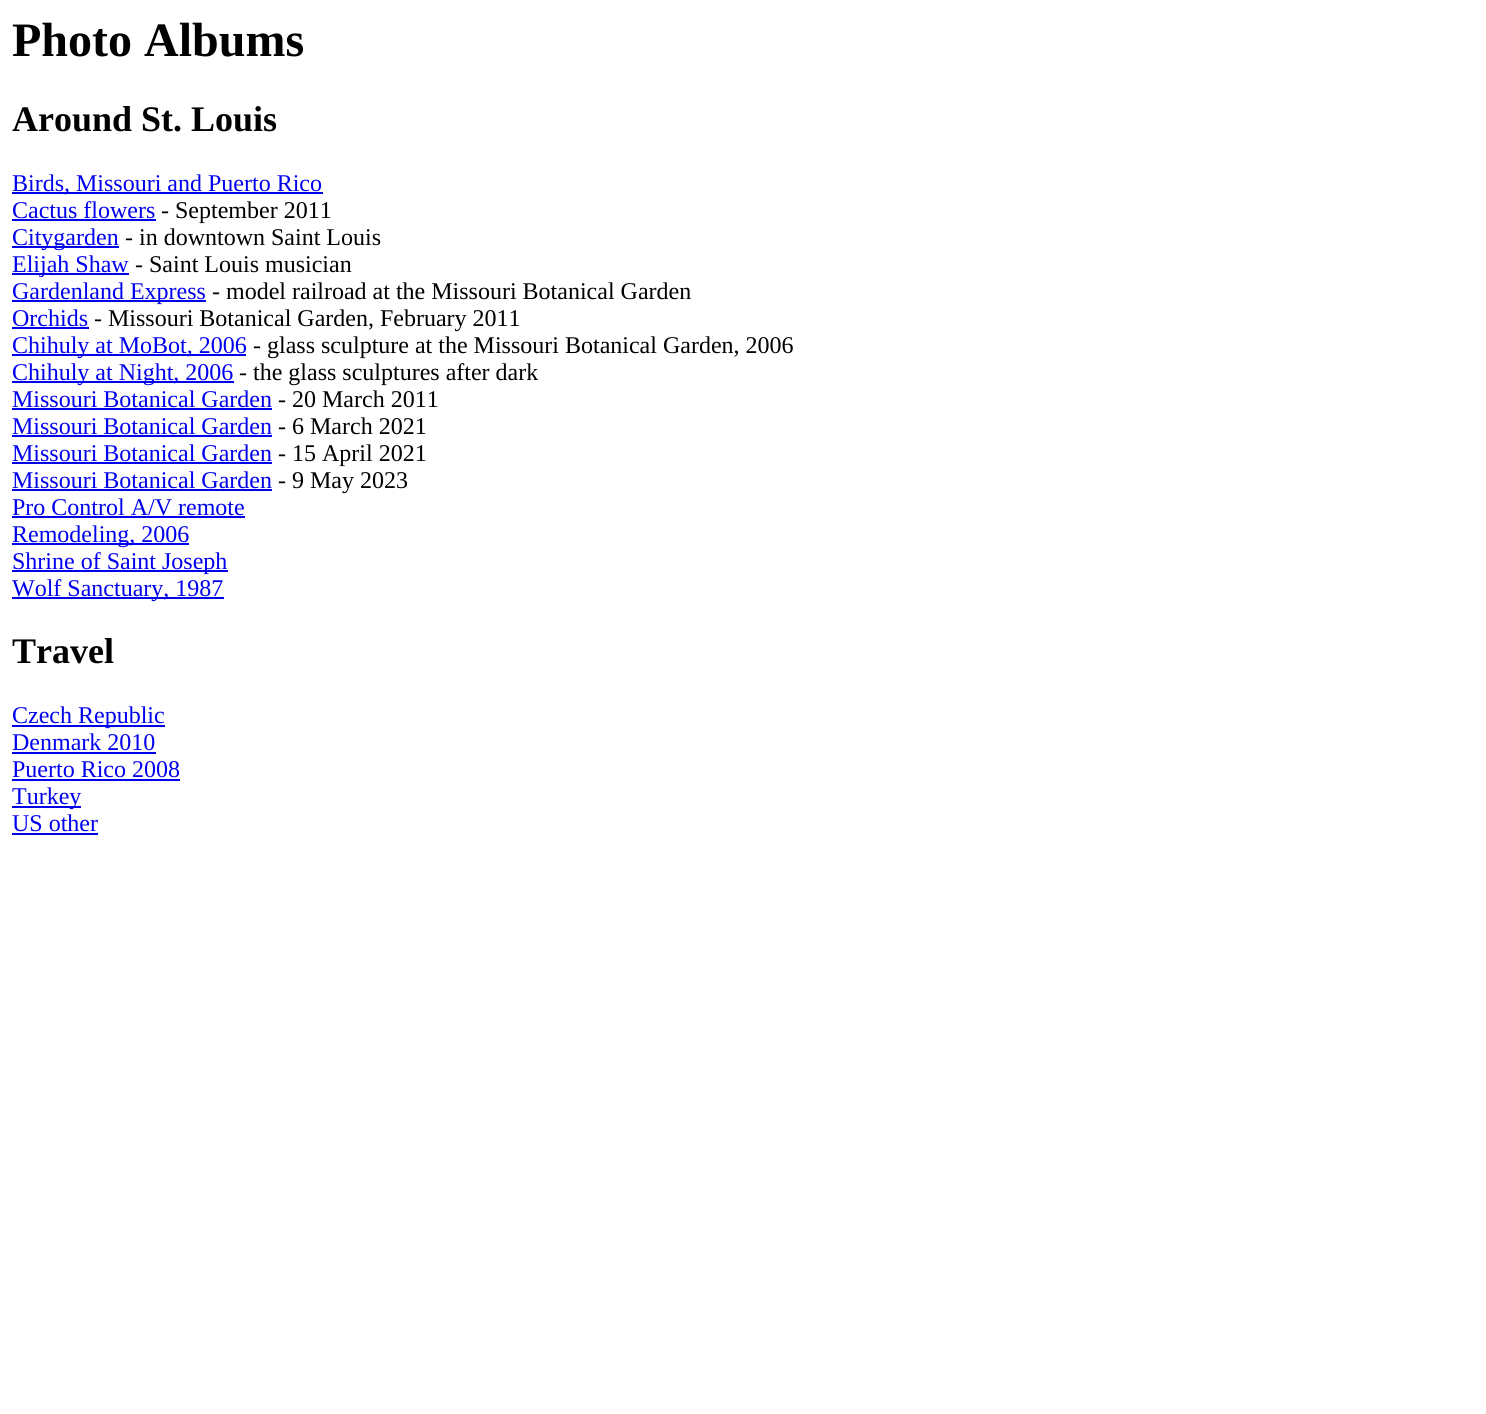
import math
import cairo

surface = cairo.ImageSurface(cairo.FORMAT_RGB24, 1486, 1414)
cr = cairo.Context(surface)
options = cairo.FontOptions()
options.set_hint_metrics(cairo.HINT_METRICS_OFF)
options.set_hint_style(cairo.HINT_STYLE_NONE)
cr.set_font_options(options)
cr.set_miter_limit(4)


def rgb(code):
    cr.set_source_rgb(*(v / 255 for v in bytes.fromhex(code[-6:])))


rgb("#ffffff")
cr.paint()
for x, y, w, h, color in [
    (12, 192, 311, 2, "#0000ee"),
    (12, 219, 144, 2, "#0000ee"),
    (12, 246, 107, 2, "#0000ee"),
    (12, 273, 117, 2, "#0000ee"),
    (12, 300, 194, 2, "#0000ee"),
    (12, 327, 77, 2, "#0000ee"),
    (12, 354, 234, 2, "#0000ee"),
    (12, 381, 222, 2, "#0000ee"),
    (12, 408, 260, 2, "#0000ee"),
    (12, 435, 260, 2, "#0000ee"),
    (12, 462, 260, 2, "#0000ee"),
    (12, 489, 260, 2, "#0000ee"),
    (12, 516, 233, 2, "#0000ee"),
    (12, 543, 177, 2, "#0000ee"),
    (12, 570, 216, 2, "#0000ee"),
    (12, 597, 212, 2, "#0000ee"),
    (12, 725, 153, 2, "#0000ee"),
    (12, 752, 144, 2, "#0000ee"),
    (12, 779, 168, 2, "#0000ee"),
    (12, 806, 69, 2, "#0000ee"),
    (12, 833, 86, 2, "#0000ee"),
]:
    rgb(color)
    cr.rectangle(x, y, w, h)
    cr.fill()
cr.select_font_face("Liberation Serif", cairo.FONT_SLANT_NORMAL, cairo.FONT_WEIGHT_BOLD)
cr.set_font_size(48)
rgb("#000000")
cr.move_to(12, 56)
cr.show_text("Photo Albums")
cr.set_font_size(36)
cr.move_to(12, 131)
cr.show_text("Around St. Louis")
cr.select_font_face("Liberation Serif")
cr.set_font_size(24)
rgb("#0000ee")
cr.move_to(12, 191)
cr.show_text("Birds, Missouri and Puerto Rico")
cr.move_to(12, 218)
cr.show_text("Cactus flowers")
rgb("#000000")
cr.move_to(161, 218)
cr.show_text("- September 2011")
rgb("#0000ee")
cr.move_to(12, 245)
cr.show_text("Citygarden")
rgb("#000000")
cr.move_to(125, 245)
cr.show_text("- in downtown Saint Louis")
rgb("#0000ee")
cr.move_to(12, 272)
cr.show_text("Elijah Shaw")
rgb("#000000")
cr.move_to(135, 272)
cr.show_text("- Saint Louis musician")
rgb("#0000ee")
cr.move_to(12, 299)
cr.show_text("Gardenland Express")
rgb("#000000")
cr.move_to(212, 299)
cr.show_text("- model railroad at the Missouri Botanical Garden")
rgb("#0000ee")
cr.move_to(12, 326)
cr.show_text("Orchids")
rgb("#000000")
cr.move_to(94, 326)
cr.show_text("- Missouri Botanical Garden, February 2011")
rgb("#0000ee")
cr.move_to(12, 353)
cr.show_text("Chihuly at MoBot, 2006")
rgb("#000000")
cr.move_to(253, 353)
cr.show_text("- glass sculpture at the Missouri Botanical Garden, 2006")
rgb("#0000ee")
cr.move_to(12, 380)
cr.show_text("Chihuly at Night, 2006")
rgb("#000000")
cr.move_to(239, 380)
cr.show_text("- the glass sculptures after dark")
rgb("#0000ee")
cr.move_to(12, 407)
cr.show_text("Missouri Botanical Garden")
rgb("#000000")
cr.move_to(278, 407)
cr.show_text("- 20 March 2011")
rgb("#0000ee")
cr.move_to(12, 434)
cr.show_text("Missouri Botanical Garden")
rgb("#000000")
cr.move_to(278, 434)
cr.show_text("- 6 March 2021")
rgb("#0000ee")
cr.move_to(12, 461)
cr.show_text("Missouri Botanical Garden")
rgb("#000000")
cr.move_to(278, 461)
cr.show_text("- 15 April 2021")
rgb("#0000ee")
cr.move_to(12, 488)
cr.show_text("Missouri Botanical Garden")
rgb("#000000")
cr.move_to(278, 488)
cr.show_text("- 9 May 2023")
rgb("#0000ee")
for x, y, s in [
    (12, 515, "Pro Control A/V remote"),
    (12, 542, "Remodeling, 2006"),
    (12, 569, "Shrine of Saint Joseph"),
    (12, 596, "Wolf Sanctuary, 1987"),
]:
    cr.move_to(x, y)
    cr.show_text(s)
cr.select_font_face("Liberation Serif", cairo.FONT_SLANT_NORMAL, cairo.FONT_WEIGHT_BOLD)
cr.set_font_size(36)
rgb("#000000")
cr.move_to(12, 663)
cr.show_text("Travel")
cr.select_font_face("Liberation Serif")
cr.set_font_size(24)
rgb("#0000ee")
for x, y, s in [
    (12, 723, "Czech Republic"),
    (12, 750, "Denmark 2010"),
    (12, 777, "Puerto Rico 2008"),
    (12, 804, "Turkey"),
    (12, 831, "US other"),
]:
    cr.move_to(x, y)
    cr.show_text(s)
surface.write_to_png("page.png")
